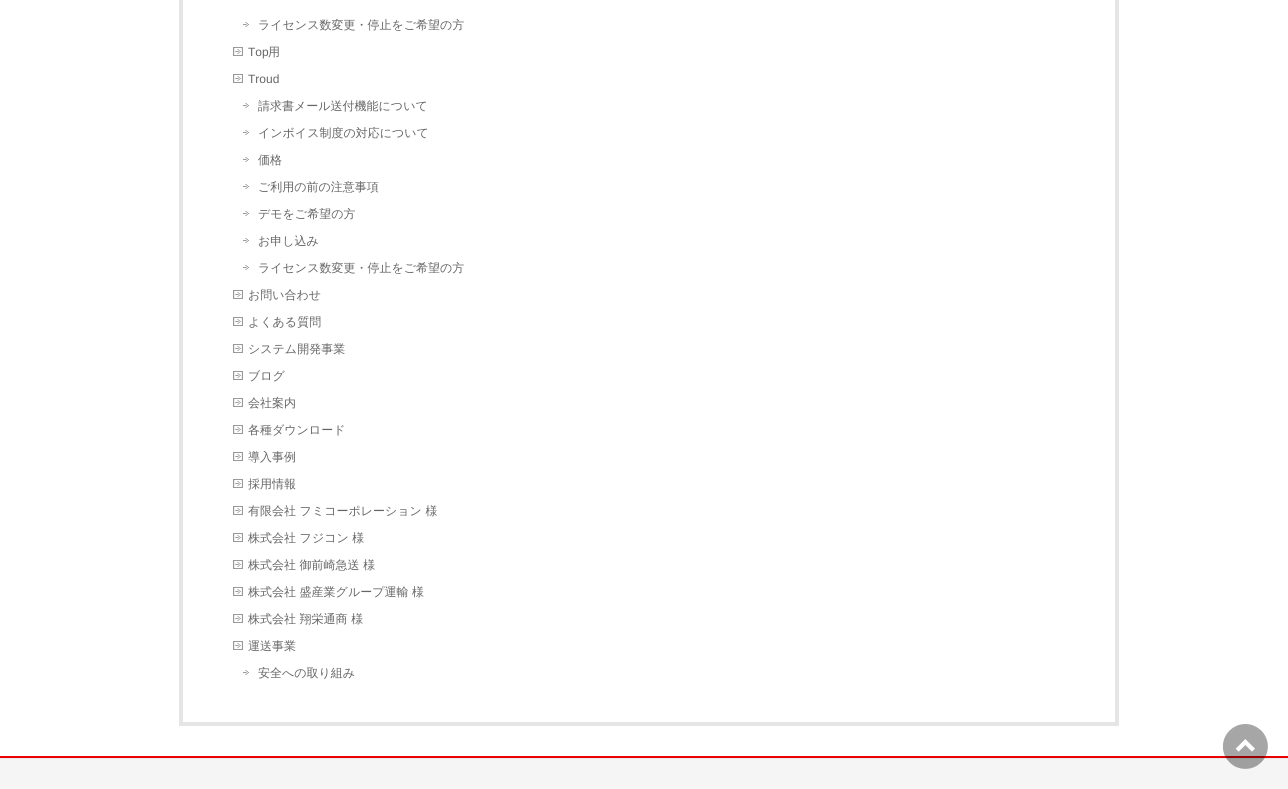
import math
import cairo

surface = cairo.ImageSurface(cairo.FORMAT_RGB24, 1288, 789)
cr = cairo.Context(surface)
options = cairo.FontOptions()
options.set_hint_metrics(cairo.HINT_METRICS_OFF)
options.set_hint_style(cairo.HINT_STYLE_NONE)
cr.set_font_options(options)
cr.set_miter_limit(4)


def rgb(code):
    cr.set_source_rgb(*(v / 255 for v in bytes.fromhex(code[-6:])))


def image(path, x, y, w, h):
    cr.save()
    cr.set_source_surface(cairo.ImageSurface.create_from_png(path), x, y)
    cr.rectangle(x, y, w, h)
    cr.fill()
    cr.restore()


rgb("#ffffff")
cr.paint()
cr.rectangle(181, -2, 936, 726)
rgb("#e5e5e5")
cr.set_line_width(4)
cr.stroke()
image("img/1.png", 243, 22, 6, 5)
image("img/2.png", 233, 47, 10, 9)
image("img/2.png", 233, 74, 10, 9)
image("img/1.png", 243, 103, 6, 5)
image("img/1.png", 243, 130, 6, 5)
image("img/1.png", 243, 157, 6, 5)
image("img/1.png", 243, 184, 6, 5)
image("img/1.png", 243, 211, 6, 5)
image("img/1.png", 243, 238, 6, 5)
image("img/1.png", 243, 265, 6, 5)
image("img/2.png", 233, 290, 10, 9)
image("img/2.png", 233, 317, 10, 9)
image("img/2.png", 233, 344, 10, 9)
image("img/2.png", 233, 371, 10, 9)
image("img/2.png", 233, 398, 10, 9)
image("img/2.png", 233, 425, 10, 9)
image("img/2.png", 233, 452, 10, 9)
image("img/2.png", 233, 479, 10, 9)
image("img/2.png", 233, 506, 10, 9)
image("img/2.png", 233, 533, 10, 9)
image("img/2.png", 233, 560, 10, 9)
image("img/2.png", 233, 587, 10, 9)
image("img/2.png", 233, 614, 10, 9)
image("img/2.png", 233, 641, 10, 9)
image("img/1.png", 243, 670, 6, 5)
for x, y, w, h, color in [
    (0, 756, 1288, 2, "#e90000"),
    (0, 758, 1288, 1, "#e9e9e9"),
    (0, 759, 1288, 30, "#f5f5f5"),
]:
    rgb(color)
    cr.rectangle(x, y, w, h)
    cr.fill()
image("img/3.png", 1223, 724, 45, 45)
cr.select_font_face("WenQuanYi Zen Hei Medium")
cr.set_font_size(12)
rgb("#666666")
cr.move_to(258, 29)
cr.show_text("ライセンス数変更・停止をご希望の方")
cr.select_font_face("Liberation Sans")
cr.move_to(248, 56)
cr.show_text("Top")
cr.select_font_face("WenQuanYi Zen Hei Medium")
cr.move_to(268, 56)
cr.show_text("用")
cr.select_font_face("Liberation Sans")
cr.move_to(248, 83)
cr.show_text("Troud")
cr.select_font_face("WenQuanYi Zen Hei Medium")
for x, y, s in [
    (258, 110, "請求書メール送付機能について"),
    (258, 137, "インボイス制度の対応について"),
    (258, 164, "価格"),
    (258, 191, "ご利用の前の注意事項"),
    (258, 218, "デモをご希望の方"),
    (258, 245, "お申し込み"),
    (258, 272, "ライセンス数変更・停止をご希望の方"),
    (248, 299, "お問い合わせ"),
    (248, 326, "よくある質問"),
    (248, 353, "システム開発事業"),
    (248, 380, "ブログ"),
    (248, 407, "会社案内"),
    (248, 434, "各種ダウンロード"),
    (248, 461, "導入事例"),
    (248, 488, "採用情報"),
    (248, 515, "有限会社 フミコーポレーション 様"),
    (248, 542, "株式会社 フジコン 様"),
    (248, 569, "株式会社 御前崎急送 様"),
    (248, 596, "株式会社 盛産業グループ運輸 様"),
    (248, 623, "株式会社 翔栄通商 様"),
    (248, 650, "運送事業"),
    (258, 677, "安全への取り組み"),
]:
    cr.move_to(x, y)
    cr.show_text(s)
surface.write_to_png("page.png")
